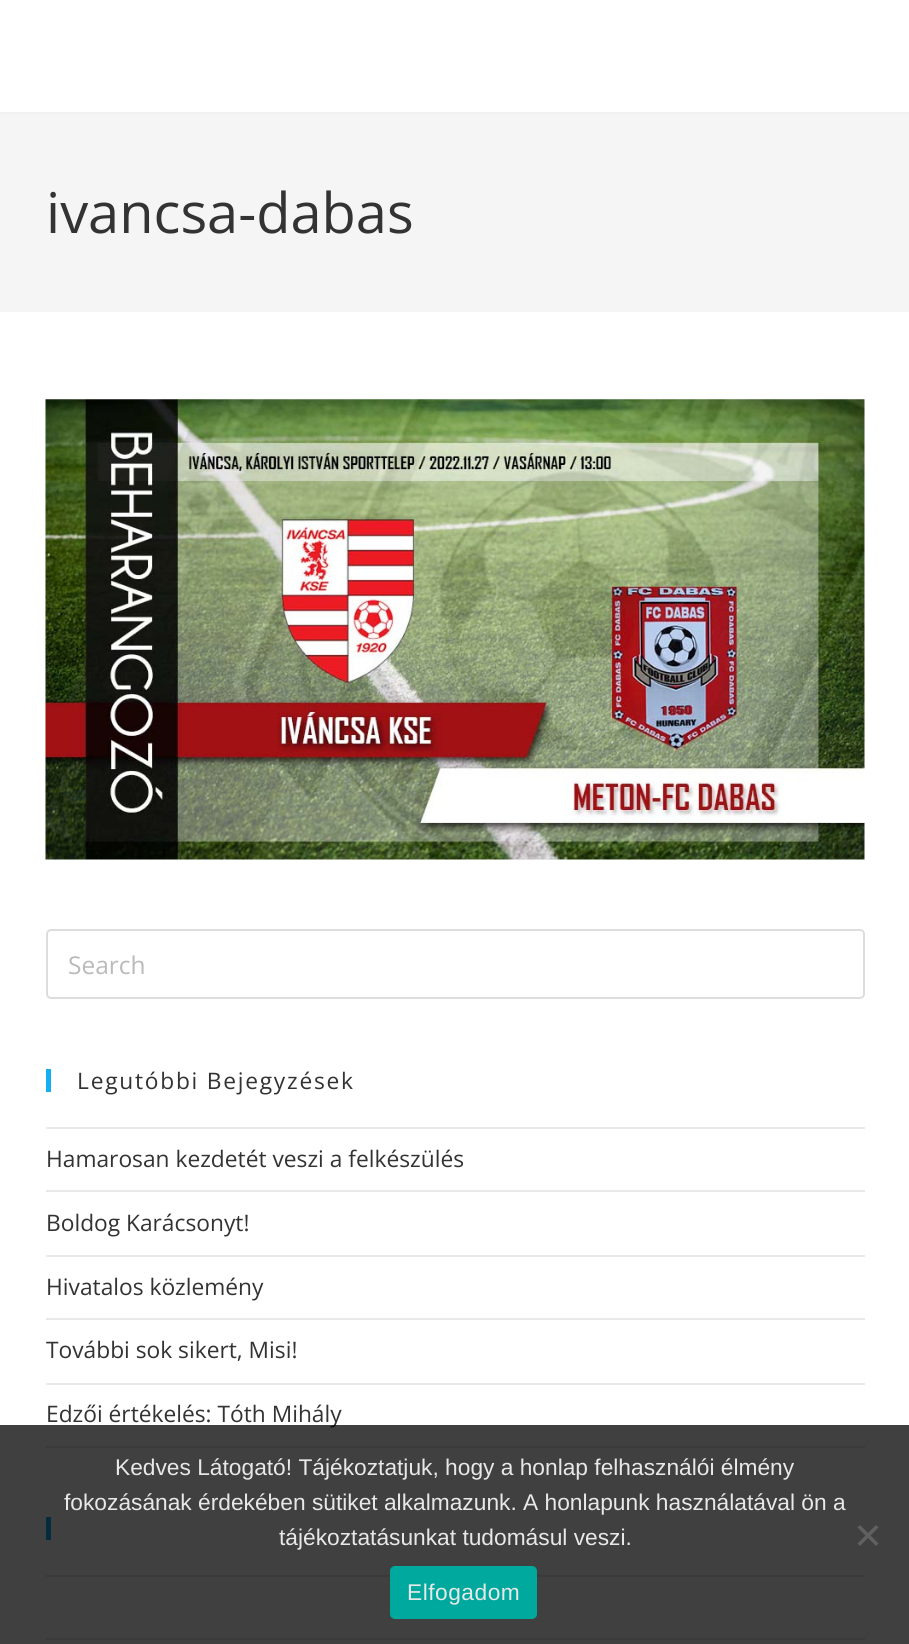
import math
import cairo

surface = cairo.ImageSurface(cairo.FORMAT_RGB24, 909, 1644)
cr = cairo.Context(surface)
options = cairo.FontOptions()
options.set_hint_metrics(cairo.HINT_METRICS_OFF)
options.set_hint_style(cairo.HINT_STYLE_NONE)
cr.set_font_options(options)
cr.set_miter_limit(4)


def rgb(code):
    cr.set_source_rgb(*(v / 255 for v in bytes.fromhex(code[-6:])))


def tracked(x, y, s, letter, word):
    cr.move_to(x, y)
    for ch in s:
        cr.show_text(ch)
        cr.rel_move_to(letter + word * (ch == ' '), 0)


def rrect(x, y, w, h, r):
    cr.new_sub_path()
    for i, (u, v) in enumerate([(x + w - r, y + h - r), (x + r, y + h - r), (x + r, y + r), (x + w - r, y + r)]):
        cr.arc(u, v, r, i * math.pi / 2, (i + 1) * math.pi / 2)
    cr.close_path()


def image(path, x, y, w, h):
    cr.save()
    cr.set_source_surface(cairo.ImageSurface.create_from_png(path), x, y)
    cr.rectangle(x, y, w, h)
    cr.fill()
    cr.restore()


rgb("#ffffff")
cr.paint()
rgb("#f1f1f1")
cr.rectangle(0, 112, 909, 2)
cr.fill()
rgb("#f5f5f5")
cr.rectangle(0, 114, 909, 198)
cr.fill()
image("img/1.png", 45, 399, 820, 461)
rrect(47, 930, 817, 68, 4)
rgb("#dddddd")
cr.stroke()
for x, y, w, h, color in [
    (46, 1069, 5, 23, "#13aff0"),
    (46, 1127, 819, 2, "#e9e9e9"),
    (46, 1190, 819, 2, "#e9e9e9"),
    (46, 1255, 819, 2, "#e9e9e9"),
    (46, 1318, 819, 2, "#e9e9e9"),
    (46, 1383, 819, 2, "#e9e9e9"),
    (46, 1446, 819, 2, "#e9e9e9"),
    (46, 1517, 5, 23, "#13aff0"),
    (46, 1575, 819, 2, "#e9e9e9"),
    (46, 1638, 819, 2, "#e9e9e9"),
]:
    rgb(color)
    cr.rectangle(x, y, w, h)
    cr.fill()
cr.select_font_face("Open Sans")
cr.set_font_size(56)
rgb("#333333")
cr.move_to(46, 233)
cr.show_text("ivancsa-dabas")
cr.set_font_size(24.5)
rgb("#bababa")
cr.move_to(68, 974)
cr.show_text("Search")
cr.set_font_size(22.75)
rgb("#333333")
tracked(77, 1089, "Legutóbbi Bejegyzések", 1.75, 0)
for x, y, s in [
    (46, 1167, "Hamarosan kezdetét veszi a felkészülés"),
    (46, 1231, "Boldog Karácsonyt!"),
    (46, 1295, "Hivatalos közlemény"),
    (46, 1358, "További sok sikert, Misi!"),
    (46, 1422, "Edzői értékelés: Tóth Mihály"),
]:
    cr.move_to(x, y)
    cr.show_text(s)
cr.set_source_rgba(0, 0, 0, 0.75)
cr.rectangle(0, 1425, 909, 219)
cr.fill()
cr.select_font_face("Liberation Sans")
rgb("#e8e8e8")
for x, y, s in [
    (115, 1475, "Kedves Látogató! Tájékoztatjuk, hogy a honlap felhasználói élmény"),
    (64, 1510, "fokozásának érdekében sütiket alkalmazunk. A honlapunk használatával ön a"),
    (279, 1545, "tájékoztatásunkat tudomásul veszi."),
]:
    cr.move_to(x, y)
    cr.show_text(s)
rgb("#606060")
cr.new_path()
cr.move_to(876, 1525)
cr.line_to(878.5, 1527.5)
cr.line_to(860, 1546)
cr.line_to(857.5, 1543.5)
cr.close_path()
cr.fill()
cr.new_path()
cr.move_to(857.5, 1527.5)
cr.line_to(860, 1525)
cr.line_to(878.5, 1543.5)
cr.line_to(876, 1546)
cr.close_path()
cr.fill()
rgb("#00a99d")
rrect(390, 1566, 147, 53, 5)
cr.fill()
rgb("#e8e8e8")
tracked(407, 1600, "Elfogadom", 0.5, 0)
surface.write_to_png("page.png")
